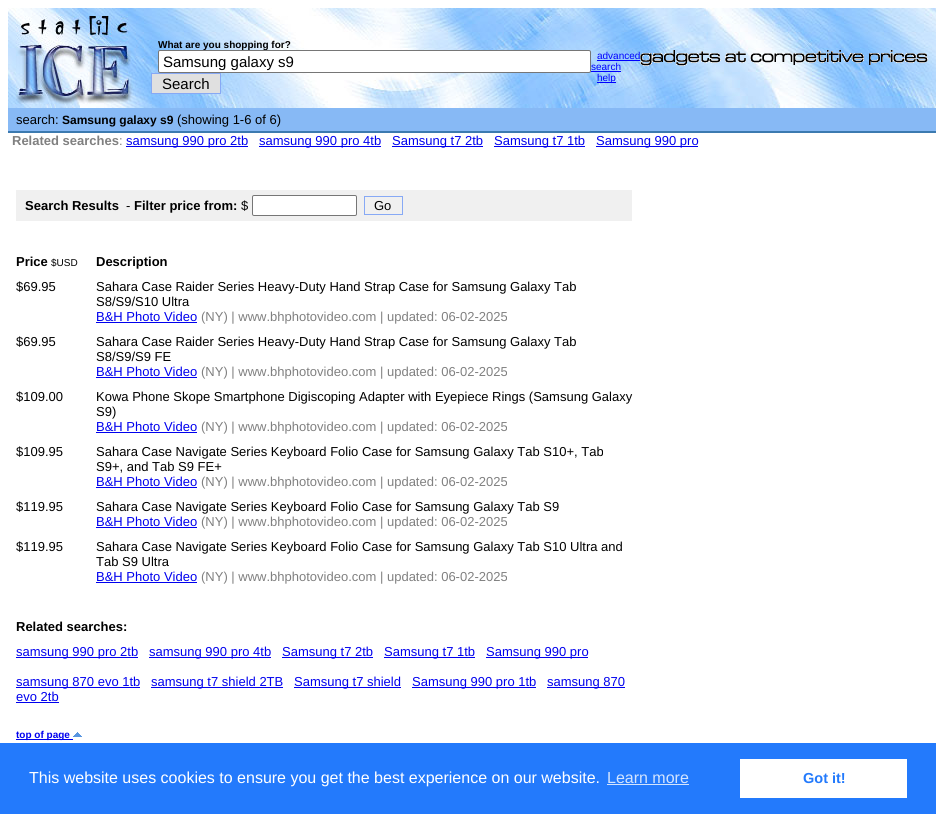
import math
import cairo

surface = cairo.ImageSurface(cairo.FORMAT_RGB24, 936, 814)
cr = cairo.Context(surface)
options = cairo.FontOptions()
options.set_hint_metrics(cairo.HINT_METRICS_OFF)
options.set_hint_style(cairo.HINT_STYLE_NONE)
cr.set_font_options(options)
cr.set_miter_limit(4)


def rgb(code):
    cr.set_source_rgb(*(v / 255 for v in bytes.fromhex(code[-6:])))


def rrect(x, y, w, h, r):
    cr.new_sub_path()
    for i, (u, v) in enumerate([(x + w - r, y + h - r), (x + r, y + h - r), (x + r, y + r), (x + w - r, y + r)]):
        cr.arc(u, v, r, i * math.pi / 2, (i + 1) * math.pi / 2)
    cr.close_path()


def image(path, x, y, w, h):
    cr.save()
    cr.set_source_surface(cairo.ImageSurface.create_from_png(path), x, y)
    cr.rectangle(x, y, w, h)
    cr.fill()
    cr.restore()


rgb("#ffffff")
cr.paint()
image("img/1.png", 144, 8, 792, 100)
image("img/2.png", 8, 8, 136, 100)
rgb("#e0e0e0")
cr.rectangle(151.5, 73.5, 69, 20)
cr.fill_preserve()
rgb("#87a9f5")
cr.set_line_width(1)
cr.stroke()
for x, y, w, h, color in [
    (597, 60, 43, 1, "#0000ff"),
    (591, 71, 30, 1, "#0000ff"),
    (597, 82, 19, 1, "#0000ff"),
]:
    rgb(color)
    cr.rectangle(x, y, w, h)
    cr.fill()
image("img/3.png", 640, 50, 288, 16)
for x, y, w, h, color in [
    (8, 108, 928, 23, "#87b9f5"),
    (8, 131, 928, 2, "#3c7ab0"),
    (126, 146, 122, 1, "#0000ee"),
    (259, 146, 122, 1, "#0000ee"),
    (392, 146, 91, 1, "#0000ee"),
    (494, 146, 91, 1, "#0000ee"),
    (596, 146, 102, 1, "#0000ee"),
    (16, 190, 616, 31, "#f0f0f0"),
]:
    rgb(color)
    cr.rectangle(x, y, w, h)
    cr.fill()
rgb("#ffffff")
rrect(252.5, 195.5, 104, 20, 1.5)
cr.fill_preserve()
rgb("#767676")
cr.stroke()
cr.rectangle(364.5, 196.5, 38, 18)
rgb("#87a9f5")
cr.stroke()
for x, y, w, h, color in [
    (96, 322, 101, 1, "#0000ee"),
    (96, 377, 101, 1, "#0000ee"),
    (96, 432, 101, 1, "#0000ee"),
    (96, 487, 101, 1, "#0000ee"),
    (96, 527, 101, 1, "#0000ee"),
    (96, 582, 101, 1, "#0000ee"),
    (16, 657, 122, 1, "#0000ee"),
    (149, 657, 122, 1, "#0000ee"),
    (282, 657, 91, 1, "#0000ee"),
    (384, 657, 91, 1, "#0000ee"),
    (486, 657, 102, 1, "#0000ee"),
    (16, 687, 124, 1, "#0000ee"),
    (151, 687, 132, 1, "#0000ee"),
    (294, 687, 107, 1, "#0000ee"),
    (412, 687, 124, 1, "#0000ee"),
    (547, 687, 78, 1, "#0000ee"),
    (16, 702, 43, 1, "#0000ee"),
    (16, 739, 57, 1, "#0000ee"),
]:
    rgb(color)
    cr.rectangle(x, y, w, h)
    cr.fill()
image("img/4.png", 73, 732, 9, 5)
for x, y, w, h, color in [
    (0, 743, 936, 71, "#237afc"),
    (607, 784, 82, 1, "#d3e4fe"),
    (740, 759, 167, 39, "#ffffff"),
]:
    rgb(color)
    cr.rectangle(x, y, w, h)
    cr.fill()
cr.select_font_face("Liberation Sans", cairo.FONT_SLANT_NORMAL, cairo.FONT_WEIGHT_BOLD)
cr.set_font_size(10)
rgb("#000000")
cr.move_to(158, 48)
cr.show_text("What are you shopping for?")
rgb("#ffffff")
rrect(158.5, 50.5, 432, 22, 1.5)
cr.fill_preserve()
rgb("#767676")
cr.stroke()
cr.select_font_face("Liberation Sans")
cr.set_font_size(15)
rgb("#000000")
cr.move_to(163, 67)
cr.show_text("Samsung galaxy s9")
cr.move_to(162, 89)
cr.show_text("Search")
cr.set_font_size(10)
rgb("#0000ff")
for x, y, s in [
    (597, 59, "advanced"),
    (591, 70, "search"),
    (597, 81, "help"),
]:
    cr.move_to(x, y)
    cr.show_text(s)
cr.set_font_size(13)
rgb("#000000")
cr.move_to(16, 124)
cr.show_text("search:")
cr.select_font_face("Liberation Sans", cairo.FONT_SLANT_NORMAL, cairo.FONT_WEIGHT_BOLD)
cr.set_font_size(12)
cr.move_to(62, 124)
cr.show_text("Samsung galaxy s9")
cr.select_font_face("Liberation Sans")
cr.set_font_size(13)
cr.move_to(177, 124)
cr.show_text("(showing 1-6 of 6)")
cr.select_font_face("Liberation Sans", cairo.FONT_SLANT_NORMAL, cairo.FONT_WEIGHT_BOLD)
rgb("#808080")
cr.move_to(12, 145)
cr.show_text("Related searches")
cr.select_font_face("Liberation Sans")
cr.move_to(119, 145)
cr.show_text(":")
rgb("#0000ee")
for x, y, s in [
    (126, 145, "samsung 990 pro 2tb"),
    (259, 145, "samsung 990 pro 4tb"),
    (392, 145, "Samsung t7 2tb"),
    (494, 145, "Samsung t7 1tb"),
    (596, 145, "Samsung 990 pro"),
]:
    cr.move_to(x, y)
    cr.show_text(s)
cr.select_font_face("Liberation Sans", cairo.FONT_SLANT_NORMAL, cairo.FONT_WEIGHT_BOLD)
rgb("#000000")
cr.move_to(25, 210)
cr.show_text("Search Results")
cr.select_font_face("Liberation Sans")
cr.move_to(126, 210)
cr.show_text("-")
cr.select_font_face("Liberation Sans", cairo.FONT_SLANT_NORMAL, cairo.FONT_WEIGHT_BOLD)
cr.move_to(134, 210)
cr.show_text("Filter price from:")
cr.select_font_face("Liberation Sans")
cr.move_to(241, 210)
cr.show_text("$")
cr.move_to(374, 210)
cr.show_text("Go")
cr.select_font_face("Liberation Sans", cairo.FONT_SLANT_NORMAL, cairo.FONT_WEIGHT_BOLD)
cr.move_to(16, 266)
cr.show_text("Price")
cr.select_font_face("Liberation Sans")
cr.set_font_size(10)
cr.move_to(51, 266)
cr.show_text("$USD")
cr.select_font_face("Liberation Sans", cairo.FONT_SLANT_NORMAL, cairo.FONT_WEIGHT_BOLD)
cr.set_font_size(13)
cr.move_to(96, 266)
cr.show_text("Description")
cr.select_font_face("Liberation Sans")
for x, y, s in [
    (16, 291, "$69.95"),
    (96, 291, "Sahara Case Raider Series Heavy-Duty Hand Strap Case for Samsung Galaxy Tab"),
    (96, 306, "S8/S9/S10 Ultra"),
]:
    cr.move_to(x, y)
    cr.show_text(s)
rgb("#0000ee")
cr.move_to(96, 321)
cr.show_text("B&H Photo Video")
rgb("#808080")
cr.move_to(201, 321)
cr.show_text("(NY) | www.bhphotovideo.com | updated: 06-02-2025")
rgb("#000000")
for x, y, s in [
    (16, 346, "$69.95"),
    (96, 346, "Sahara Case Raider Series Heavy-Duty Hand Strap Case for Samsung Galaxy Tab"),
    (96, 361, "S8/S9/S9 FE"),
]:
    cr.move_to(x, y)
    cr.show_text(s)
rgb("#0000ee")
cr.move_to(96, 376)
cr.show_text("B&H Photo Video")
rgb("#808080")
cr.move_to(201, 376)
cr.show_text("(NY) | www.bhphotovideo.com | updated: 06-02-2025")
rgb("#000000")
for x, y, s in [
    (16, 401, "$109.00"),
    (96, 401, "Kowa Phone Skope Smartphone Digiscoping Adapter with Eyepiece Rings (Samsung Galaxy"),
    (96, 416, "S9)"),
]:
    cr.move_to(x, y)
    cr.show_text(s)
rgb("#0000ee")
cr.move_to(96, 431)
cr.show_text("B&H Photo Video")
rgb("#808080")
cr.move_to(201, 431)
cr.show_text("(NY) | www.bhphotovideo.com | updated: 06-02-2025")
rgb("#000000")
for x, y, s in [
    (16, 456, "$109.95"),
    (96, 456, "Sahara Case Navigate Series Keyboard Folio Case for Samsung Galaxy Tab S10+, Tab"),
    (96, 471, "S9+, and Tab S9 FE+"),
]:
    cr.move_to(x, y)
    cr.show_text(s)
rgb("#0000ee")
cr.move_to(96, 486)
cr.show_text("B&H Photo Video")
rgb("#808080")
cr.move_to(201, 486)
cr.show_text("(NY) | www.bhphotovideo.com | updated: 06-02-2025")
rgb("#000000")
cr.move_to(16, 511)
cr.show_text("$119.95")
cr.move_to(96, 511)
cr.show_text("Sahara Case Navigate Series Keyboard Folio Case for Samsung Galaxy Tab S9")
rgb("#0000ee")
cr.move_to(96, 526)
cr.show_text("B&H Photo Video")
rgb("#808080")
cr.move_to(201, 526)
cr.show_text("(NY) | www.bhphotovideo.com | updated: 06-02-2025")
rgb("#000000")
for x, y, s in [
    (16, 551, "$119.95"),
    (96, 551, "Sahara Case Navigate Series Keyboard Folio Case for Samsung Galaxy Tab S10 Ultra and"),
    (96, 566, "Tab S9 Ultra"),
]:
    cr.move_to(x, y)
    cr.show_text(s)
rgb("#0000ee")
cr.move_to(96, 581)
cr.show_text("B&H Photo Video")
rgb("#808080")
cr.move_to(201, 581)
cr.show_text("(NY) | www.bhphotovideo.com | updated: 06-02-2025")
cr.select_font_face("Liberation Sans", cairo.FONT_SLANT_NORMAL, cairo.FONT_WEIGHT_BOLD)
rgb("#000000")
cr.move_to(16, 631)
cr.show_text("Related searches:")
cr.select_font_face("Liberation Sans")
rgb("#0000ee")
for x, y, s in [
    (16, 656, "samsung 990 pro 2tb"),
    (149, 656, "samsung 990 pro 4tb"),
    (282, 656, "Samsung t7 2tb"),
    (384, 656, "Samsung t7 1tb"),
    (486, 656, "Samsung 990 pro"),
    (16, 686, "samsung 870 evo 1tb"),
    (151, 686, "samsung t7 shield 2TB"),
    (294, 686, "Samsung t7 shield"),
    (412, 686, "Samsung 990 pro 1tb"),
    (547, 686, "samsung 870"),
    (16, 701, "evo 2tb"),
]:
    cr.move_to(x, y)
    cr.show_text(s)
cr.select_font_face("Liberation Sans", cairo.FONT_SLANT_NORMAL, cairo.FONT_WEIGHT_BOLD)
cr.set_font_size(10)
cr.move_to(16, 738)
cr.show_text("top of page")
cr.select_font_face("Liberation Sans")
cr.set_font_size(16)
rgb("#ffffff")
cr.move_to(29, 783)
cr.show_text("This website uses cookies to ensure you get the best experience on our website.")
rgb("#d3e4fe")
cr.move_to(607, 783)
cr.show_text("Learn more")
cr.select_font_face("Liberation Sans", cairo.FONT_SLANT_NORMAL, cairo.FONT_WEIGHT_BOLD)
cr.set_font_size(14.5)
rgb("#237afc")
cr.move_to(803, 783)
cr.show_text("Got it!")
surface.write_to_png("page.png")
